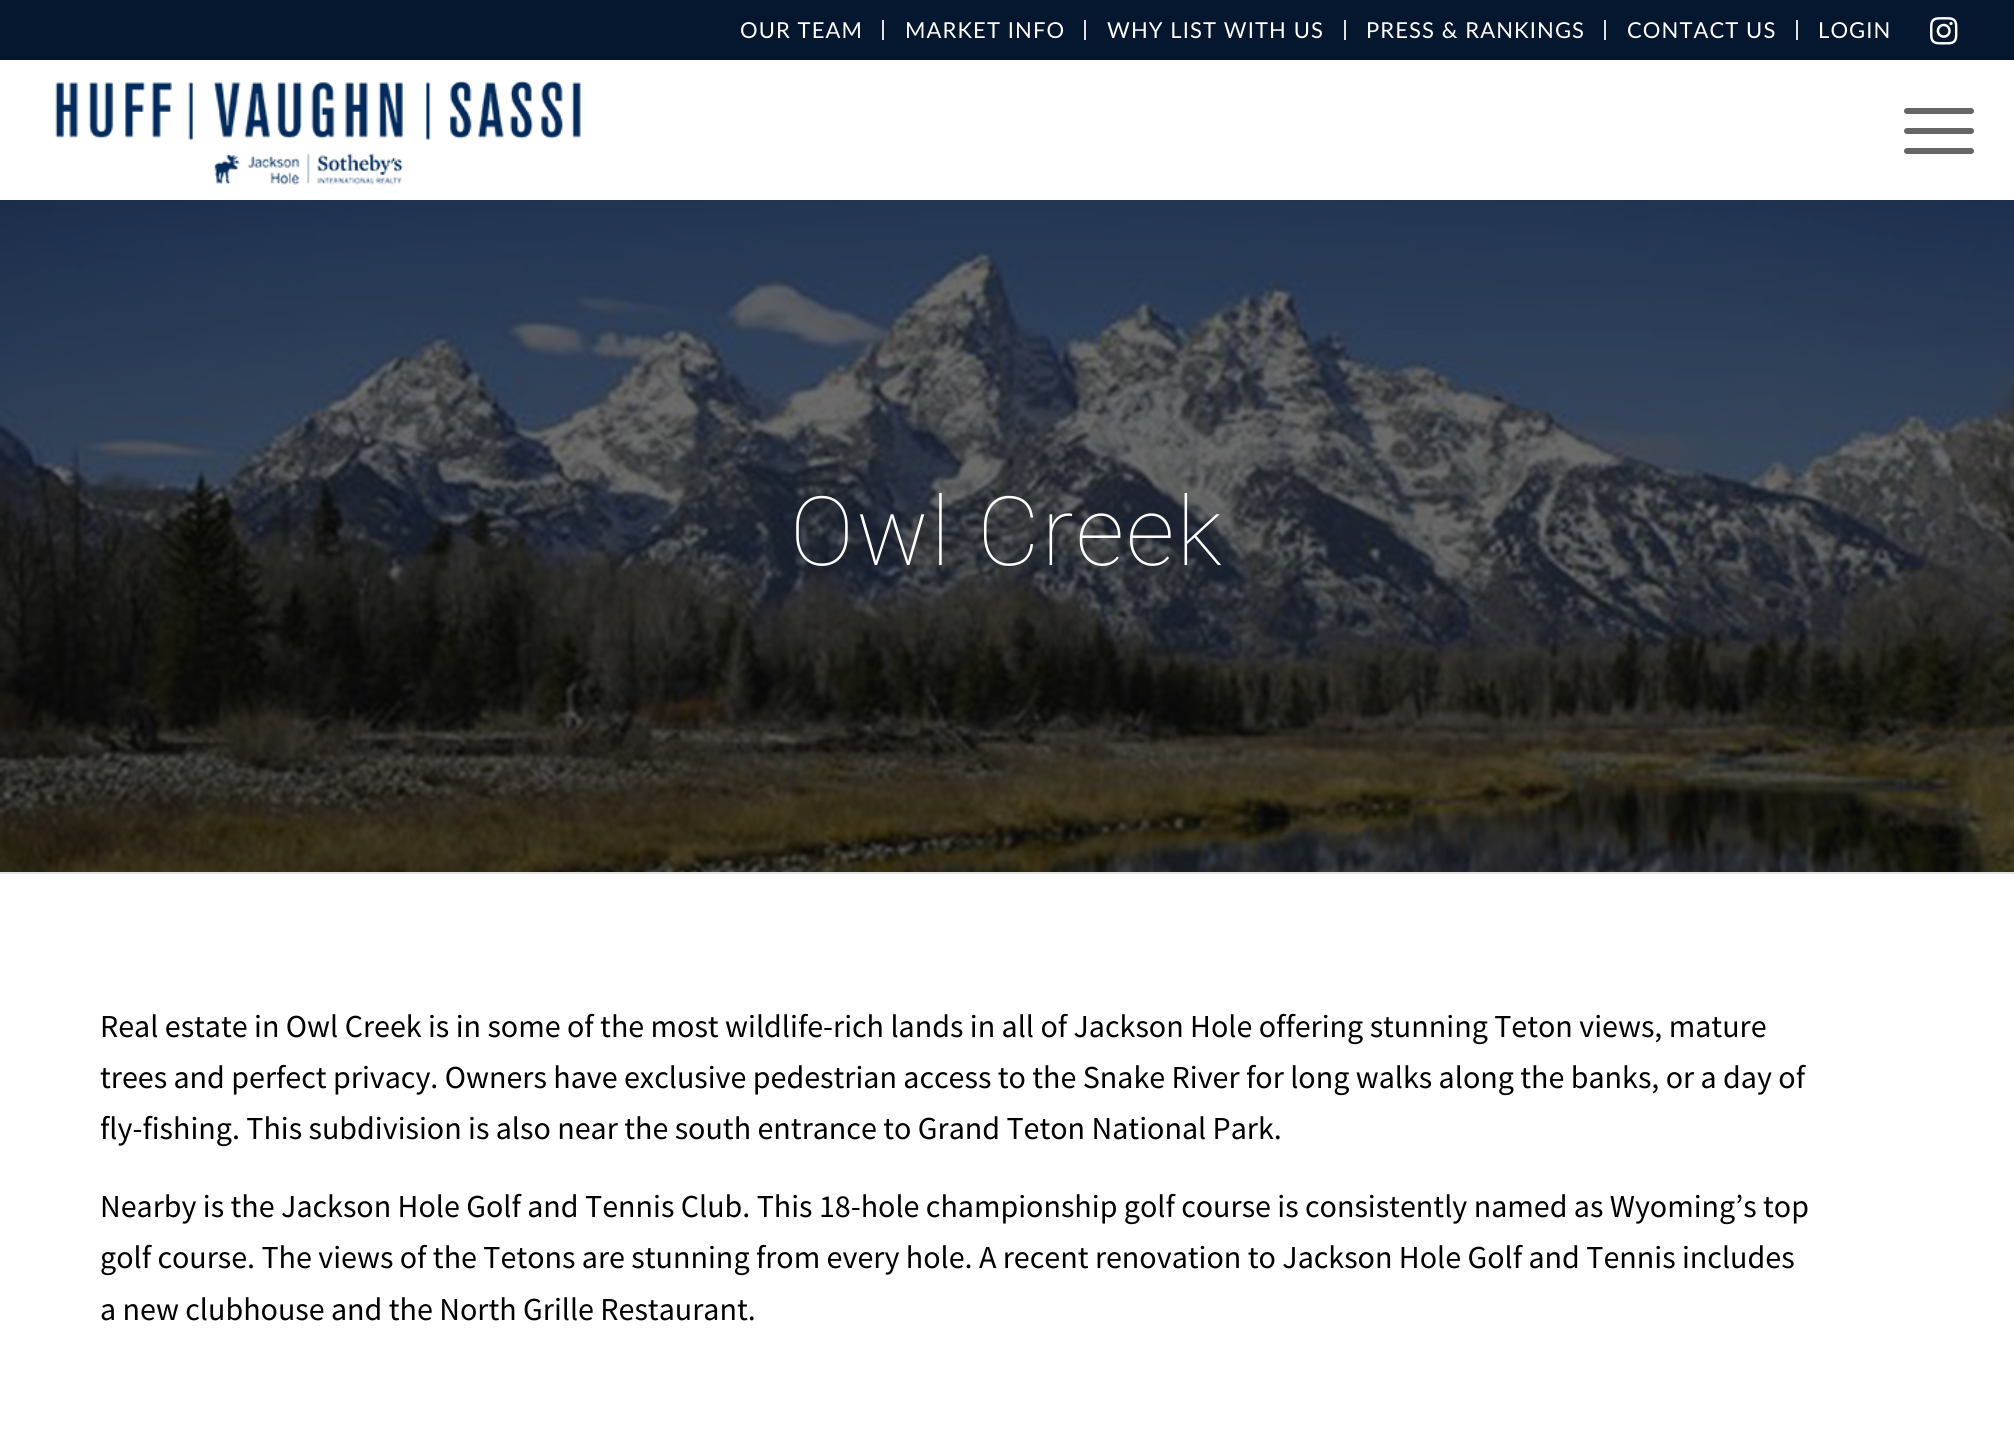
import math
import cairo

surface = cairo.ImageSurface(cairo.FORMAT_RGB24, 2014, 1446)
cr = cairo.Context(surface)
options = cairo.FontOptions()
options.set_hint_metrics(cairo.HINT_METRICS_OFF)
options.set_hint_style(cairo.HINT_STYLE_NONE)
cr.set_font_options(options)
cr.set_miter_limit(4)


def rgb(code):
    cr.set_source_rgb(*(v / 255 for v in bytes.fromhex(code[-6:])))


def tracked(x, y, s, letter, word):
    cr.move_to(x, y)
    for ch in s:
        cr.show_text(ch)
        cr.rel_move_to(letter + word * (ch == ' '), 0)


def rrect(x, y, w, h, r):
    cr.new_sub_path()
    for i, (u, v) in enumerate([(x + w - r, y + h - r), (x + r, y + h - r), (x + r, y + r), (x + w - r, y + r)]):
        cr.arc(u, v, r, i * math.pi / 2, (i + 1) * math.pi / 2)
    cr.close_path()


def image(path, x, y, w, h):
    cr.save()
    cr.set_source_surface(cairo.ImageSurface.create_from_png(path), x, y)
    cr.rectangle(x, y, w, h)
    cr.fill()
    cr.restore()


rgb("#ffffff")
cr.paint()
for x, y, w, h, color in [
    (0, 0, 2014, 60, "#05162f"),
    (882, 20, 2, 20, "#e1e1e1"),
    (1084, 20, 2, 20, "#e1e1e1"),
    (1344, 20, 2, 20, "#e1e1e1"),
    (1604, 20, 2, 20, "#e1e1e1"),
    (1796, 20, 2, 20, "#e1e1e1"),
]:
    rgb(color)
    cr.rectangle(x, y, w, h)
    cr.fill()
image("img/1.png", 1930, 17, 28, 28)
image("img/2.png", 55, 80, 526, 105)
rgb("#666666")
rrect(1904, 128, 70, 6, 3)
cr.fill()
rrect(1904, 108, 70, 6, 3)
cr.fill()
rrect(1904, 148, 70, 6, 3)
cr.fill()
image("img/3.png", 0, 200, 2014, 672)
rgb("#e1e1e1")
cr.rectangle(0, 872, 2014, 2)
cr.fill()
cr.select_font_face("Lato")
cr.set_font_size(22)
rgb("#ffffff")
for x, y, s in [
    (740, 38, "OUR TEAM"),
    (905, 38, "MARKET INFO"),
    (1107, 38, "WHY LIST WITH US"),
    (1366, 38, "PRESS & RANKINGS"),
    (1627, 38, "CONTACT US"),
    (1818, 38, "LOGIN"),
]:
    tracked(x, y, s, 1.1, 0)
cr.select_font_face("Heebo Thin")
cr.set_font_size(96)
tracked(790, 565, "Owl Creek", 2, 0)
cr.select_font_face("Source Sans Pro")
cr.set_font_size(32)
rgb("#000000")
for x, y, s in [
    (100, 1037, "Real estate in Owl Creek is in some of the most wildlife-rich lands in all of Jackson Hole offering stunning Teton views, mature"),
    (100, 1088, "trees and perfect privacy. Owners have exclusive pedestrian access to the Snake River for long walks along the banks, or a day of"),
    (100, 1139, "fly-fishing. This subdivision is also near the south entrance to Grand Teton National Park."),
    (100, 1217, "Nearby is the Jackson Hole Golf and Tennis Club. This 18-hole championship golf course is consistently named as Wyoming’s top"),
    (100, 1268, "golf course. The views of the Tetons are stunning from every hole. A recent renovation to Jackson Hole Golf and Tennis includes"),
    (100, 1320, "a new clubhouse and the North Grille Restaurant."),
]:
    cr.move_to(x, y)
    cr.show_text(s)
surface.write_to_png("page.png")
